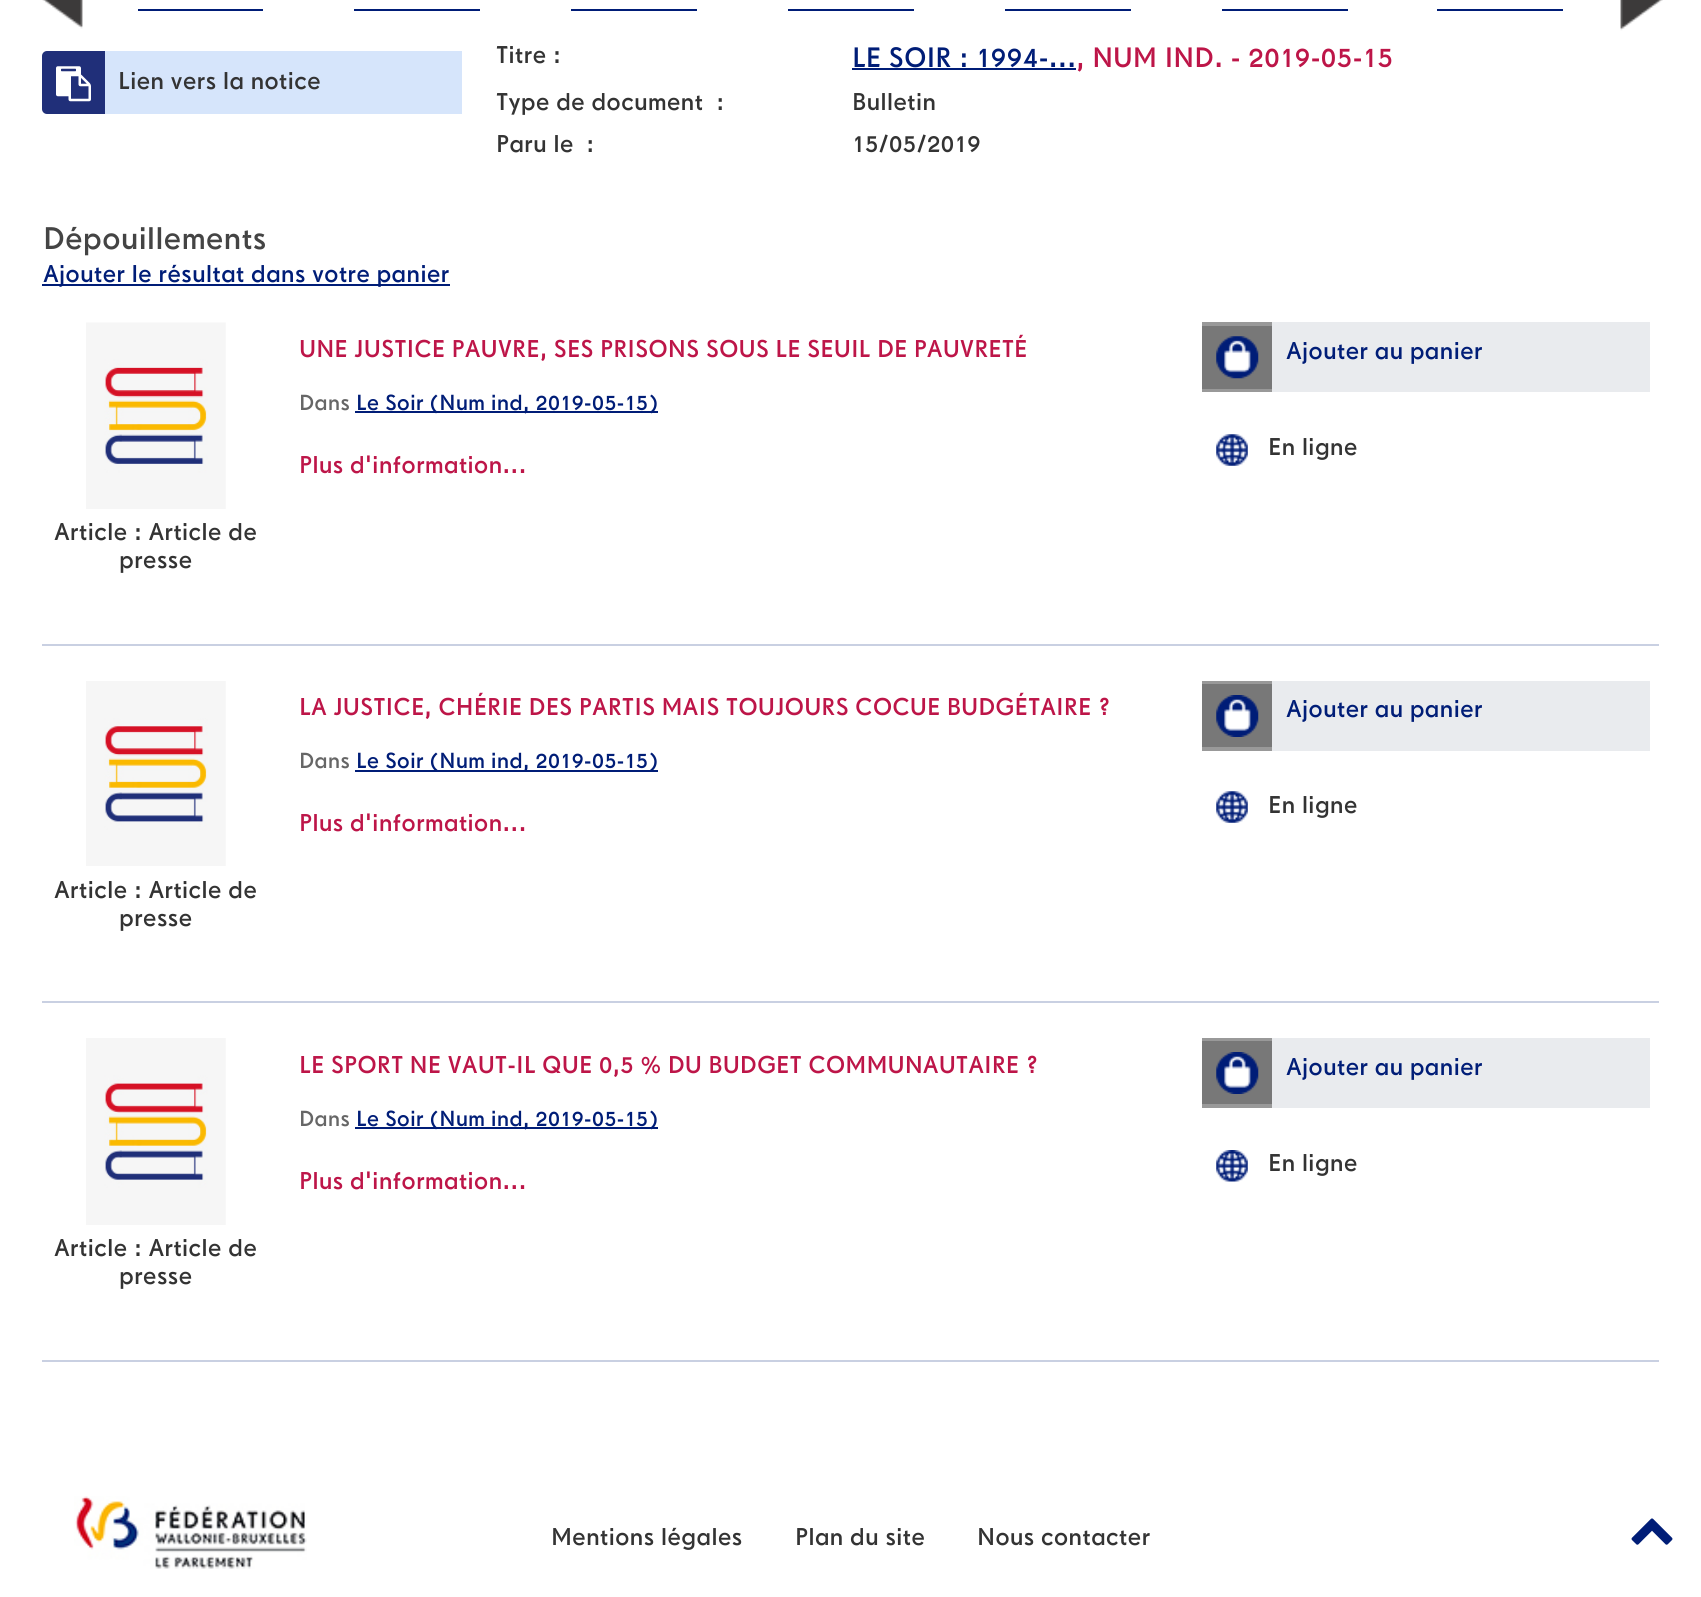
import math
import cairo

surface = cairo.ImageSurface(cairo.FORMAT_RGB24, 1701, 1597)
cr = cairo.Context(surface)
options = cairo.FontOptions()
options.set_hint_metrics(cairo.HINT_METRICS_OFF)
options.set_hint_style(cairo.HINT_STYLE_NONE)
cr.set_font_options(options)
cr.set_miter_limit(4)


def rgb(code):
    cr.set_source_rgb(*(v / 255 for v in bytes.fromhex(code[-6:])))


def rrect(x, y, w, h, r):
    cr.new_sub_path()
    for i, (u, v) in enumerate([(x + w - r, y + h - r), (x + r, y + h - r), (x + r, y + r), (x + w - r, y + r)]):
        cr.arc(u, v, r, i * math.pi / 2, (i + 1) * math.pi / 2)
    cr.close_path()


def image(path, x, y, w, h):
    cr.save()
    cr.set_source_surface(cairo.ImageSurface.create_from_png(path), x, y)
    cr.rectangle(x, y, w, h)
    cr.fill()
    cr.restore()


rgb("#ffffff")
cr.paint()
image("img/1.png", 42, 0, 41, 29)
for x, y, w, h, color in [
    (138, 9, 125, 2, "#001d77"),
    (354, 9, 126, 2, "#001d77"),
    (571, 9, 126, 2, "#001d77"),
    (788, 9, 126, 2, "#001d77"),
    (1005, 9, 126, 2, "#001d77"),
    (1222, 9, 126, 2, "#001d77"),
    (1437, 9, 126, 2, "#001d77"),
]:
    rgb(color)
    cr.rectangle(x, y, w, h)
    cr.fill()
image("img/2.png", 1620, 0, 43, 31)
rgb("#202f79")
rrect(42, 51, 420, 63, 5)
cr.fill()
image("img/3.png", 56, 66, 35, 36)
for x, y, w, h, color in [
    (105, 51, 357, 63, "#d6e5fb"),
    (852, 68, 224, 2, "#001d77"),
    (42, 284, 408, 2, "#001d77"),
    (42, 644, 1617, 2, "#c9d0e2"),
    (355, 411, 303, 2, "#001d77"),
    (1202, 322, 70, 70, "#999999"),
    (1202, 326, 70, 63, "#787878"),
]:
    rgb(color)
    cr.rectangle(x, y, w, h)
    cr.fill()
image("img/4.png", 1216, 336, 43, 43)
rgb("#e9ebee")
cr.rectangle(1272, 322, 378, 70)
cr.fill()
image("img/5.png", 1216, 434, 32, 32)
image("img/6.png", 86, 322, 140, 187)
for x, y, w, h, color in [
    (42, 1001, 1617, 2, "#c9d0e2"),
    (355, 770, 303, 2, "#001d77"),
    (1202, 681, 70, 70, "#999999"),
    (1202, 684, 70, 63, "#787878"),
]:
    rgb(color)
    cr.rectangle(x, y, w, h)
    cr.fill()
image("img/7.png", 1216, 695, 43, 42)
rgb("#e9ebee")
cr.rectangle(1272, 681, 378, 70)
cr.fill()
image("img/5.png", 1216, 791, 32, 32)
image("img/8.png", 86, 681, 140, 185)
for x, y, w, h, color in [
    (42, 1360, 1617, 2, "#c9d0e2"),
    (355, 1127, 303, 2, "#001d77"),
    (1202, 1038, 70, 70, "#999999"),
    (1202, 1041, 70, 63, "#787878"),
]:
    rgb(color)
    cr.rectangle(x, y, w, h)
    cr.fill()
image("img/7.png", 1216, 1052, 43, 42)
rgb("#e9ebee")
cr.rectangle(1272, 1038, 378, 70)
cr.fill()
image("img/9.png", 1216, 1150, 32, 32)
image("img/10.png", 86, 1038, 140, 187)
image("img/11.png", 74, 1496, 233, 73)
image("img/12.png", 1631, 1518, 42, 27)
cr.select_font_face("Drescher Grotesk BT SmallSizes")
cr.set_font_size(24.5)
rgb("#333333")
cr.move_to(118, 89)
cr.show_text("Lien vers la notice")
cr.move_to(496, 63)
cr.show_text("Titre :")
cr.set_font_size(28.25)
rgb("#001d77")
cr.move_to(852, 67)
cr.show_text("LE SOIR : 1994-...")
rgb("#bd1548")
cr.move_to(1076, 67)
cr.show_text(", NUM IND. - 2019-05-15")
cr.set_font_size(24.5)
rgb("#333333")
for x, y, s in [
    (496, 110, "Type de document"),
    (716, 110, ":"),
    (852, 110, "Bulletin"),
    (496, 152, "Paru le"),
    (586, 152, ":"),
    (852, 152, "15/05/2019"),
]:
    cr.move_to(x, y)
    cr.show_text(s)
cr.set_font_size(31.5)
rgb("#444444")
cr.move_to(43, 249)
cr.show_text("Dépouillements")
cr.set_font_size(24.5)
rgb("#001d77")
cr.move_to(43, 282)
cr.show_text("Ajouter le résultat dans votre panier")
rgb("#bd1548")
cr.move_to(299, 357)
cr.show_text("UNE JUSTICE PAUVRE, SES PRISONS SOUS LE SEUIL DE PAUVRETÉ")
cr.set_font_size(22)
rgb("#666666")
cr.move_to(299, 410)
cr.show_text("Dans")
rgb("#001d77")
cr.move_to(356, 410)
cr.show_text("Le Soir (Num ind, 2019-05-15)")
cr.set_font_size(24.5)
rgb("#bd1548")
cr.move_to(299, 473)
cr.show_text("Plus d'information...")
rgb("#001d77")
cr.move_to(1286, 359)
cr.show_text("Ajouter au panier")
rgb("#333333")
for x, y, s in [
    (1268, 455, "En ligne"),
    (54, 540, "Article : Article de"),
    (119, 568, "presse"),
]:
    cr.move_to(x, y)
    cr.show_text(s)
rgb("#bd1548")
cr.move_to(299, 715)
cr.show_text("LA JUSTICE, CHÉRIE DES PARTIS MAIS TOUJOURS COCUE BUDGÉTAIRE ?")
cr.set_font_size(22)
rgb("#666666")
cr.move_to(299, 768)
cr.show_text("Dans")
rgb("#001d77")
cr.move_to(356, 768)
cr.show_text("Le Soir (Num ind, 2019-05-15)")
cr.set_font_size(24.5)
rgb("#bd1548")
cr.move_to(299, 831)
cr.show_text("Plus d'information...")
rgb("#001d77")
cr.move_to(1286, 717)
cr.show_text("Ajouter au panier")
rgb("#333333")
for x, y, s in [
    (1268, 813, "En ligne"),
    (54, 898, "Article : Article de"),
    (119, 926, "presse"),
]:
    cr.move_to(x, y)
    cr.show_text(s)
rgb("#bd1548")
cr.move_to(299, 1073)
cr.show_text("LE SPORT NE VAUT-IL QUE 0,5 % DU BUDGET COMMUNAUTAIRE ?")
cr.set_font_size(22)
rgb("#666666")
cr.move_to(299, 1126)
cr.show_text("Dans")
rgb("#001d77")
cr.move_to(356, 1126)
cr.show_text("Le Soir (Num ind, 2019-05-15)")
cr.set_font_size(24.5)
rgb("#bd1548")
cr.move_to(299, 1189)
cr.show_text("Plus d'information...")
rgb("#001d77")
cr.move_to(1286, 1075)
cr.show_text("Ajouter au panier")
rgb("#333333")
for x, y, s in [
    (1268, 1171, "En ligne"),
    (54, 1256, "Article : Article de"),
    (119, 1284, "presse"),
    (551, 1545, "Mentions légales"),
    (795, 1545, "Plan du site"),
    (977, 1545, "Nous contacter"),
]:
    cr.move_to(x, y)
    cr.show_text(s)
surface.write_to_png("page.png")
